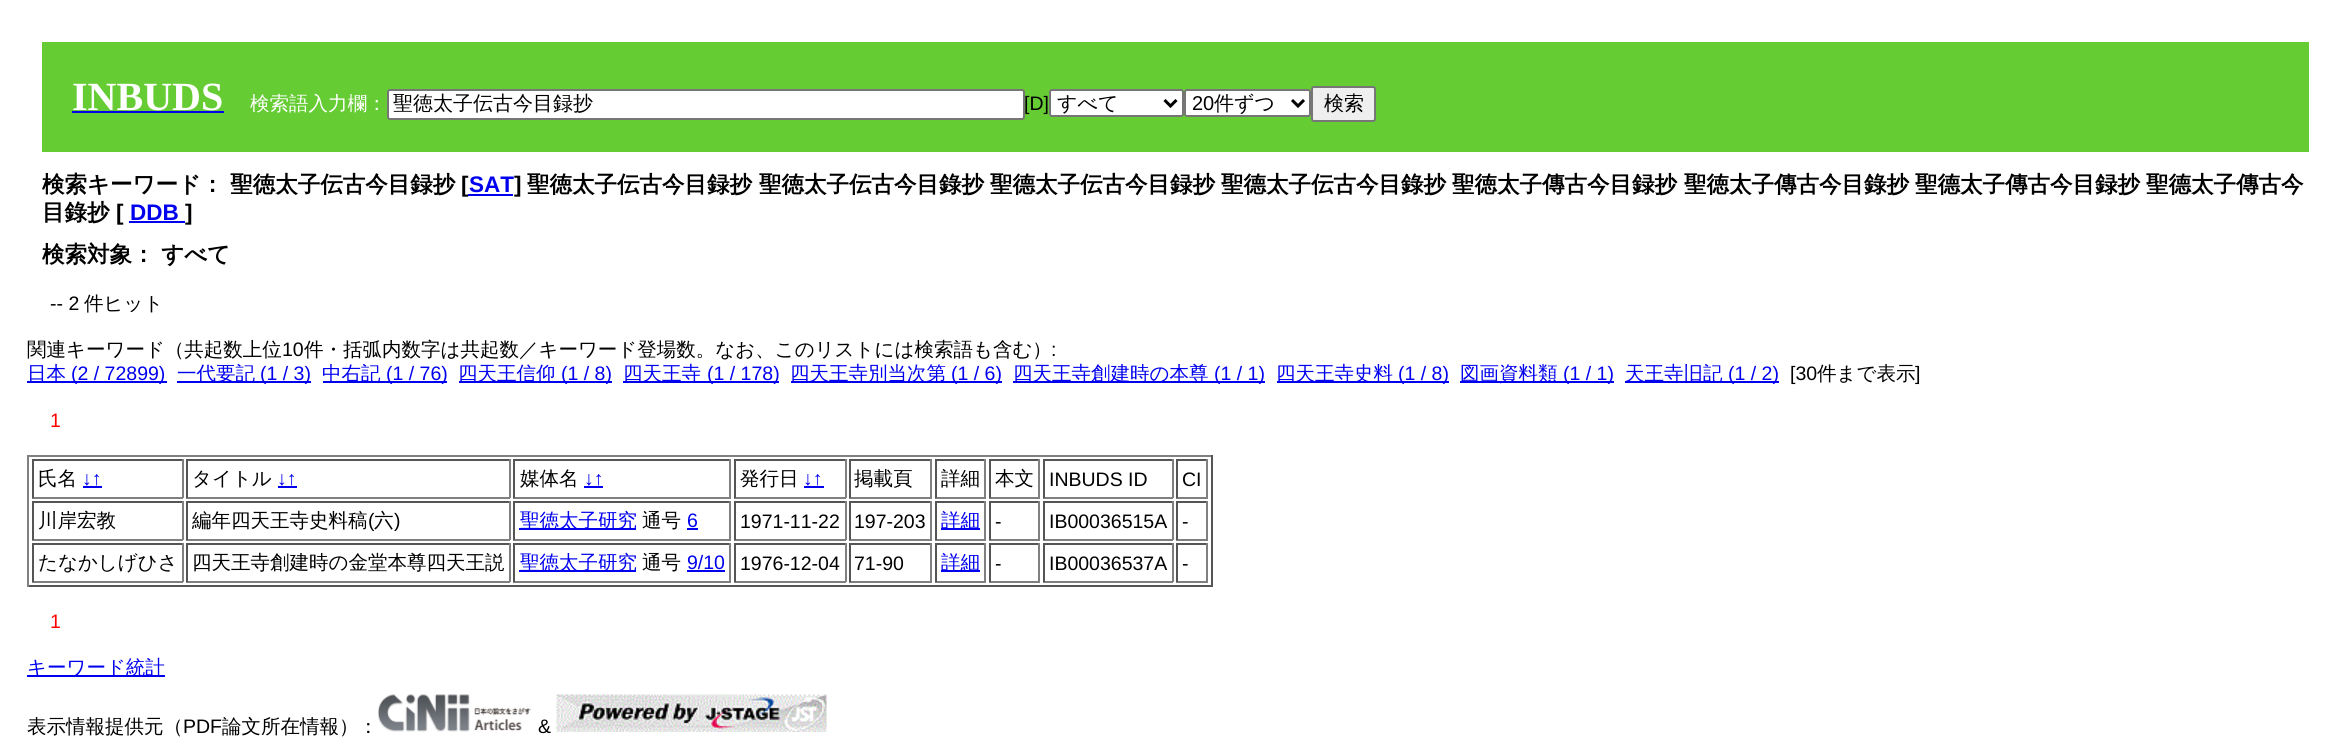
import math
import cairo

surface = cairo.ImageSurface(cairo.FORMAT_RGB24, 2350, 754)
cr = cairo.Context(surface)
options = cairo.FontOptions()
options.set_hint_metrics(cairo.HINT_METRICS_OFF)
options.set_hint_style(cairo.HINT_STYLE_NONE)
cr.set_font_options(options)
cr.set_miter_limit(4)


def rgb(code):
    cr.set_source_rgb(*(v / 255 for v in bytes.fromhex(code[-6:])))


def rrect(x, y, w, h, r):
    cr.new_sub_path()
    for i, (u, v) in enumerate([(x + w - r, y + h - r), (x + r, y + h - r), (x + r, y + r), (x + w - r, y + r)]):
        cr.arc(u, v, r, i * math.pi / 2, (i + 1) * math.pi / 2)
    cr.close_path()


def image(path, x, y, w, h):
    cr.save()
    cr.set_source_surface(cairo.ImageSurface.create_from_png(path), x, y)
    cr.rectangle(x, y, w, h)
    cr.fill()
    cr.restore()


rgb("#ffffff")
cr.paint()
rgb("#66cc33")
cr.rectangle(42, 42, 2267, 110)
cr.fill()
rgb("#0000ee")
cr.rectangle(72, 111, 152, 2)
cr.fill()
rgb("#ffffff")
rrect(388, 90, 636, 29, 2)
cr.fill_preserve()
rgb("#767676")
cr.stroke()
rgb("#ffffff")
rrect(1050, 90, 133, 26, 2)
cr.fill_preserve()
rgb("#767676")
cr.stroke()
cr.new_path()
cr.move_to(1164.5, 100)
cr.line_to(1170.5, 106)
cr.line_to(1176.5, 100)
rgb("#000000")
cr.set_line_width(3)
cr.stroke()
rgb("#ffffff")
rrect(1185, 90, 125, 26, 2)
cr.fill_preserve()
rgb("#767676")
cr.set_line_width(2)
cr.stroke()
cr.new_path()
cr.move_to(1292, 100)
cr.line_to(1298, 106)
cr.line_to(1304, 100)
rgb("#000000")
cr.set_line_width(3)
cr.stroke()
rgb("#efefef")
rrect(1312, 87, 63, 34, 2)
cr.fill_preserve()
rgb("#767676")
cr.set_line_width(2)
cr.stroke()
for x, y, w, h, color in [
    (129, 221, 56, 2, "#0000ee"),
    (27, 381, 140, 2, "#0000ee"),
    (177, 381, 134, 2, "#0000ee"),
    (323, 381, 124, 2, "#0000ee"),
    (459, 381, 153, 2, "#0000ee"),
    (623, 381, 156, 2, "#0000ee"),
    (791, 381, 211, 2, "#0000ee"),
    (1013, 381, 252, 2, "#0000ee"),
    (1277, 381, 172, 2, "#0000ee"),
    (1460, 381, 154, 2, "#0000ee"),
    (1625, 381, 154, 2, "#0000ee"),
    (27, 455, 1185, 2, "#808080"),
    (1211, 455, 2, 132, "#555555"),
    (27, 585, 1185, 2, "#555555"),
    (27, 455, 2, 132, "#808080"),
    (32, 459, 151, 2, "#555555"),
    (182, 459, 2, 39, "#808080"),
    (32, 497, 151, 2, "#808080"),
    (32, 459, 2, 39, "#555555"),
    (83, 486, 19, 2, "#0000ee"),
    (186, 459, 324, 2, "#555555"),
    (509, 459, 2, 39, "#808080"),
    (186, 497, 324, 2, "#808080"),
    (186, 459, 2, 39, "#555555"),
    (278, 486, 19, 2, "#0000ee"),
    (513, 459, 218, 2, "#555555"),
    (729, 459, 2, 39, "#808080"),
    (513, 497, 218, 2, "#808080"),
    (513, 459, 2, 39, "#555555"),
    (584, 486, 19, 2, "#0000ee"),
    (734, 459, 112, 2, "#555555"),
    (845, 459, 2, 39, "#808080"),
    (734, 497, 112, 2, "#808080"),
    (734, 459, 2, 39, "#555555"),
    (804, 486, 20, 2, "#0000ee"),
    (849, 459, 83, 2, "#555555"),
    (930, 459, 2, 39, "#808080"),
    (849, 497, 83, 2, "#808080"),
    (849, 459, 2, 39, "#555555"),
    (935, 459, 51, 2, "#555555"),
    (984, 459, 2, 39, "#808080"),
    (935, 497, 51, 2, "#808080"),
    (935, 459, 2, 39, "#555555"),
    (989, 459, 51, 2, "#555555"),
    (1038, 459, 2, 39, "#808080"),
    (989, 497, 51, 2, "#808080"),
    (989, 459, 2, 39, "#555555"),
    (1043, 459, 130, 2, "#555555"),
    (1172, 459, 2, 39, "#808080"),
    (1043, 497, 130, 2, "#808080"),
    (1043, 459, 2, 39, "#555555"),
    (1176, 459, 32, 2, "#555555"),
    (1206, 459, 2, 39, "#808080"),
    (1176, 497, 32, 2, "#808080"),
    (1176, 459, 2, 39, "#555555"),
    (32, 501, 151, 2, "#555555"),
    (182, 501, 2, 39, "#808080"),
    (32, 539, 151, 2, "#808080"),
    (32, 501, 2, 39, "#555555"),
    (186, 501, 324, 2, "#555555"),
    (509, 501, 2, 39, "#808080"),
    (186, 539, 324, 2, "#808080"),
    (186, 501, 2, 39, "#555555"),
    (513, 501, 218, 2, "#555555"),
    (729, 501, 2, 39, "#808080"),
    (513, 539, 218, 2, "#808080"),
    (513, 501, 2, 39, "#555555"),
    (519, 528, 117, 2, "#0000ee"),
    (687, 528, 11, 2, "#0000ee"),
    (734, 501, 112, 2, "#555555"),
    (845, 501, 2, 39, "#808080"),
    (734, 539, 112, 2, "#808080"),
    (734, 501, 2, 39, "#555555"),
    (849, 501, 83, 2, "#555555"),
    (930, 501, 2, 39, "#808080"),
    (849, 539, 83, 2, "#808080"),
    (849, 501, 2, 39, "#555555"),
    (935, 501, 51, 2, "#555555"),
    (984, 501, 2, 39, "#808080"),
    (935, 539, 51, 2, "#808080"),
    (935, 501, 2, 39, "#555555"),
    (941, 528, 39, 2, "#0000ee"),
    (989, 501, 51, 2, "#555555"),
    (1038, 501, 2, 39, "#808080"),
    (989, 539, 51, 2, "#808080"),
    (989, 501, 2, 39, "#555555"),
    (1043, 501, 130, 2, "#555555"),
    (1172, 501, 2, 39, "#808080"),
    (1043, 539, 130, 2, "#808080"),
    (1043, 501, 2, 39, "#555555"),
    (1176, 501, 32, 2, "#555555"),
    (1206, 501, 2, 39, "#808080"),
    (1176, 539, 32, 2, "#808080"),
    (1176, 501, 2, 39, "#555555"),
    (32, 543, 151, 2, "#555555"),
    (182, 543, 2, 39, "#808080"),
    (32, 581, 151, 2, "#808080"),
    (32, 543, 2, 39, "#555555"),
    (186, 543, 324, 2, "#555555"),
    (509, 543, 2, 39, "#808080"),
    (186, 581, 324, 2, "#808080"),
    (186, 543, 2, 39, "#555555"),
    (513, 543, 218, 2, "#555555"),
    (729, 543, 2, 39, "#808080"),
    (513, 581, 218, 2, "#808080"),
    (513, 543, 2, 39, "#555555"),
    (519, 570, 117, 2, "#0000ee"),
    (687, 570, 38, 2, "#0000ee"),
    (734, 543, 112, 2, "#555555"),
    (845, 543, 2, 39, "#808080"),
    (734, 581, 112, 2, "#808080"),
    (734, 543, 2, 39, "#555555"),
    (849, 543, 83, 2, "#555555"),
    (930, 543, 2, 39, "#808080"),
    (849, 581, 83, 2, "#808080"),
    (849, 543, 2, 39, "#555555"),
    (935, 543, 51, 2, "#555555"),
    (984, 543, 2, 39, "#808080"),
    (935, 581, 51, 2, "#808080"),
    (935, 543, 2, 39, "#555555"),
    (941, 570, 39, 2, "#0000ee"),
    (989, 543, 51, 2, "#555555"),
    (1038, 543, 2, 39, "#808080"),
    (989, 581, 51, 2, "#808080"),
    (989, 543, 2, 39, "#555555"),
    (1043, 543, 130, 2, "#555555"),
    (1172, 543, 2, 39, "#808080"),
    (1043, 581, 130, 2, "#808080"),
    (1043, 543, 2, 39, "#555555"),
    (1176, 543, 32, 2, "#555555"),
    (1206, 543, 2, 39, "#808080"),
    (1176, 581, 32, 2, "#808080"),
    (1176, 543, 2, 39, "#555555"),
    (27, 675, 138, 2, "#0000ee"),
]:
    rgb(color)
    cr.rectangle(x, y, w, h)
    cr.fill()
image("img/1.png", 378, 694, 153, 38)
image("img/2.png", 556, 694, 271, 38)
cr.select_font_face("Liberation Serif", cairo.FONT_SLANT_NORMAL, cairo.FONT_WEIGHT_BOLD)
cr.set_font_size(40)
rgb("#ffffff")
cr.move_to(72, 110)
cr.show_text("INBUDS")
cr.select_font_face("WenQuanYi Zen Hei Medium")
cr.set_font_size(19.5)
cr.move_to(250, 110)
cr.show_text("検索語入力欄：")
cr.set_font_size(20)
rgb("#000000")
cr.move_to(393, 110)
cr.show_text("聖徳太子伝古今目録抄")
cr.select_font_face("Liberation Sans")
cr.set_font_size(19.5)
cr.move_to(1024, 110)
cr.show_text("[D]")
cr.select_font_face("WenQuanYi Zen Hei Medium")
cr.set_font_size(20)
cr.move_to(1057, 110)
cr.show_text("すべて")
cr.select_font_face("Liberation Sans")
cr.move_to(1192, 110)
cr.show_text("20")
cr.select_font_face("WenQuanYi Zen Hei Medium")
cr.move_to(1214, 110)
cr.show_text("件ずつ")
cr.move_to(1324, 110)
cr.show_text("検索")
cr.select_font_face("WenQuanYi Zen Hei", cairo.FONT_SLANT_NORMAL, cairo.FONT_WEIGHT_BOLD)
cr.set_font_size(22.5)
cr.move_to(42, 192)
cr.show_text("検索キーワード： 聖徳太子伝古今目録抄")
cr.select_font_face("Liberation Sans", cairo.FONT_SLANT_NORMAL, cairo.FONT_WEIGHT_BOLD)
cr.move_to(461, 192)
cr.show_text("[")
rgb("#0000ee")
cr.move_to(469, 192)
cr.show_text("SAT")
cr.rectangle(468, 194, 45, 2)
cr.fill()
rgb("#000000")
cr.move_to(514, 192)
cr.show_text("]")
cr.select_font_face("WenQuanYi Zen Hei", cairo.FONT_SLANT_NORMAL, cairo.FONT_WEIGHT_BOLD)
for x, y, s in [
    (527, 192, "聖徳太子伝古今目録抄"),
    (759, 192, "聖徳太子伝古今目錄抄"),
    (990, 192, "聖德太子伝古今目録抄"),
    (1221, 192, "聖德太子伝古今目錄抄"),
    (1452, 192, "聖徳太子傳古今目録抄"),
    (1684, 192, "聖徳太子傳古今目錄抄"),
    (1915, 192, "聖德太子傳古今目録抄"),
    (2146, 192, "聖德太子傳古今"),
    (42, 220, "目錄抄"),
]:
    cr.move_to(x, y)
    cr.show_text(s)
cr.select_font_face("Liberation Sans", cairo.FONT_SLANT_NORMAL, cairo.FONT_WEIGHT_BOLD)
cr.move_to(116, 220)
cr.show_text("[")
rgb("#0000ee")
cr.move_to(130, 220)
cr.show_text("DDB")
rgb("#000000")
cr.move_to(185, 220)
cr.show_text("]")
cr.select_font_face("WenQuanYi Zen Hei", cairo.FONT_SLANT_NORMAL, cairo.FONT_WEIGHT_BOLD)
cr.move_to(42, 262)
cr.show_text("検索対象： すべて")
cr.select_font_face("Liberation Sans")
cr.set_font_size(19.5)
cr.move_to(50, 310)
cr.show_text("-- 2")
cr.select_font_face("WenQuanYi Zen Hei Medium")
cr.move_to(84, 310)
cr.show_text("件ヒット")
cr.move_to(27, 356)
cr.show_text("関連キーワード（共起数上位")
cr.select_font_face("Liberation Sans")
cr.move_to(282, 356)
cr.show_text("10")
cr.select_font_face("WenQuanYi Zen Hei Medium")
cr.move_to(304, 356)
cr.show_text("件・括弧内数字は共起数／キーワード登場数。なお、このリストには検索語も含む）")
cr.select_font_face("Liberation Sans")
cr.move_to(1051, 356)
cr.show_text(":")
cr.select_font_face("WenQuanYi Zen Hei Medium")
rgb("#0000ee")
cr.move_to(27, 380)
cr.show_text("日本")
cr.select_font_face("Liberation Sans")
cr.move_to(71, 380)
cr.show_text("(2 / 72899)")
cr.select_font_face("WenQuanYi Zen Hei Medium")
cr.move_to(177, 380)
cr.show_text("一代要記")
cr.select_font_face("Liberation Sans")
cr.move_to(260, 380)
cr.show_text("(1 / 3)")
cr.select_font_face("WenQuanYi Zen Hei Medium")
cr.move_to(322, 380)
cr.show_text("中右記")
cr.select_font_face("Liberation Sans")
cr.move_to(386, 380)
cr.show_text("(1 / 76)")
cr.select_font_face("WenQuanYi Zen Hei Medium")
cr.move_to(458, 380)
cr.show_text("四天王信仰")
cr.select_font_face("Liberation Sans")
cr.move_to(561, 380)
cr.show_text("(1 / 8)")
cr.select_font_face("WenQuanYi Zen Hei Medium")
cr.move_to(623, 380)
cr.show_text("四天王寺")
cr.select_font_face("Liberation Sans")
cr.move_to(707, 380)
cr.show_text("(1 / 178)")
cr.select_font_face("WenQuanYi Zen Hei Medium")
cr.move_to(790, 380)
cr.show_text("四天王寺別当次第")
cr.select_font_face("Liberation Sans")
cr.move_to(951, 380)
cr.show_text("(1 / 6)")
cr.select_font_face("WenQuanYi Zen Hei Medium")
cr.move_to(1013, 380)
cr.show_text("四天王寺創建時の本尊")
cr.select_font_face("Liberation Sans")
cr.move_to(1214, 380)
cr.show_text("(1 / 1)")
cr.select_font_face("WenQuanYi Zen Hei Medium")
cr.move_to(1276, 380)
cr.show_text("四天王寺史料")
cr.select_font_face("Liberation Sans")
cr.move_to(1398, 380)
cr.show_text("(1 / 8)")
cr.select_font_face("WenQuanYi Zen Hei Medium")
cr.move_to(1460, 380)
cr.show_text("図画資料類")
cr.select_font_face("Liberation Sans")
cr.move_to(1563, 380)
cr.show_text("(1 / 1)")
cr.select_font_face("WenQuanYi Zen Hei Medium")
cr.move_to(1625, 380)
cr.show_text("天王寺旧記")
cr.select_font_face("Liberation Sans")
cr.move_to(1728, 380)
cr.show_text("(1 / 2)")
rgb("#000000")
cr.move_to(1790, 380)
cr.show_text("[30")
cr.select_font_face("WenQuanYi Zen Hei Medium")
cr.move_to(1817, 380)
cr.show_text("件まで表示")
cr.select_font_face("Liberation Sans")
cr.move_to(1915, 380)
cr.show_text("]")
rgb("#ff0000")
cr.move_to(50, 427)
cr.show_text("1")
cr.select_font_face("WenQuanYi Zen Hei Medium")
rgb("#000000")
cr.move_to(38, 485)
cr.show_text("氏名")
cr.select_font_face("Liberation Sans")
rgb("#0000ee")
cr.move_to(82, 485)
cr.show_text("↓↑")
cr.select_font_face("WenQuanYi Zen Hei Medium")
rgb("#000000")
cr.move_to(192, 485)
cr.show_text("タイトル")
cr.select_font_face("Liberation Sans")
rgb("#0000ee")
cr.move_to(277, 485)
cr.show_text("↓↑")
cr.select_font_face("WenQuanYi Zen Hei Medium")
rgb("#000000")
cr.move_to(520, 485)
cr.show_text("媒体名")
cr.select_font_face("Liberation Sans")
rgb("#0000ee")
cr.move_to(584, 485)
cr.show_text("↓↑")
cr.select_font_face("WenQuanYi Zen Hei Medium")
rgb("#000000")
cr.move_to(740, 485)
cr.show_text("発行日")
cr.select_font_face("Liberation Sans")
rgb("#0000ee")
cr.move_to(803, 485)
cr.show_text("↓↑")
cr.select_font_face("WenQuanYi Zen Hei Medium")
rgb("#000000")
for x, y, s in [
    (854, 485, "掲載頁"),
    (941, 485, "詳細"),
    (995, 485, "本文"),
]:
    cr.move_to(x, y)
    cr.show_text(s)
cr.select_font_face("Liberation Sans")
cr.move_to(1049, 486)
cr.show_text("INBUDS ID")
cr.move_to(1182, 486)
cr.show_text("CI")
cr.select_font_face("WenQuanYi Zen Hei Medium")
cr.move_to(38, 527)
cr.show_text("川岸宏教")
cr.move_to(192, 527)
cr.show_text("編年四天王寺史料稿")
cr.select_font_face("Liberation Sans")
cr.move_to(368, 527)
cr.show_text("(")
cr.select_font_face("WenQuanYi Zen Hei Medium")
cr.move_to(374, 527)
cr.show_text("六")
cr.select_font_face("Liberation Sans")
cr.move_to(394, 527)
cr.show_text(")")
cr.select_font_face("WenQuanYi Zen Hei Medium")
rgb("#0000ee")
cr.move_to(520, 527)
cr.show_text("聖徳太子研究")
rgb("#000000")
cr.move_to(642, 527)
cr.show_text("通号")
cr.select_font_face("Liberation Sans")
rgb("#0000ee")
cr.move_to(687, 527)
cr.show_text("6")
rgb("#000000")
cr.move_to(740, 528)
cr.show_text("1971-11-22")
cr.move_to(854, 528)
cr.show_text("197-203")
cr.select_font_face("WenQuanYi Zen Hei Medium")
rgb("#0000ee")
cr.move_to(941, 527)
cr.show_text("詳細")
cr.select_font_face("Liberation Sans")
rgb("#000000")
for x, y, s in [
    (995, 528, "-"),
    (1049, 528, "IB00036515A"),
    (1182, 528, "-"),
]:
    cr.move_to(x, y)
    cr.show_text(s)
cr.select_font_face("WenQuanYi Zen Hei Medium")
cr.move_to(38, 569)
cr.show_text("たなかしげひさ")
cr.move_to(192, 569)
cr.show_text("四天王寺創建時の金堂本尊四天王説")
rgb("#0000ee")
cr.move_to(520, 569)
cr.show_text("聖徳太子研究")
rgb("#000000")
cr.move_to(642, 569)
cr.show_text("通号")
cr.select_font_face("Liberation Sans")
rgb("#0000ee")
cr.move_to(687, 569)
cr.show_text("9/10")
rgb("#000000")
cr.move_to(740, 570)
cr.show_text("1976-12-04")
cr.move_to(854, 570)
cr.show_text("71-90")
cr.select_font_face("WenQuanYi Zen Hei Medium")
rgb("#0000ee")
cr.move_to(941, 569)
cr.show_text("詳細")
cr.select_font_face("Liberation Sans")
rgb("#000000")
for x, y, s in [
    (995, 570, "-"),
    (1049, 570, "IB00036537A"),
    (1182, 570, "-"),
]:
    cr.move_to(x, y)
    cr.show_text(s)
rgb("#ff0000")
cr.move_to(50, 628)
cr.show_text("1")
cr.select_font_face("WenQuanYi Zen Hei Medium")
rgb("#0000ee")
cr.move_to(27, 674)
cr.show_text("キーワード統計")
rgb("#000000")
cr.move_to(27, 733)
cr.show_text("表示情報提供元（")
cr.select_font_face("Liberation Sans")
cr.move_to(183, 733)
cr.show_text("PDF")
cr.select_font_face("WenQuanYi Zen Hei Medium")
cr.move_to(222, 733)
cr.show_text("論文所在情報）：")
cr.select_font_face("Liberation Sans")
cr.move_to(538, 733)
cr.show_text("&")
surface.write_to_png("page.png")
